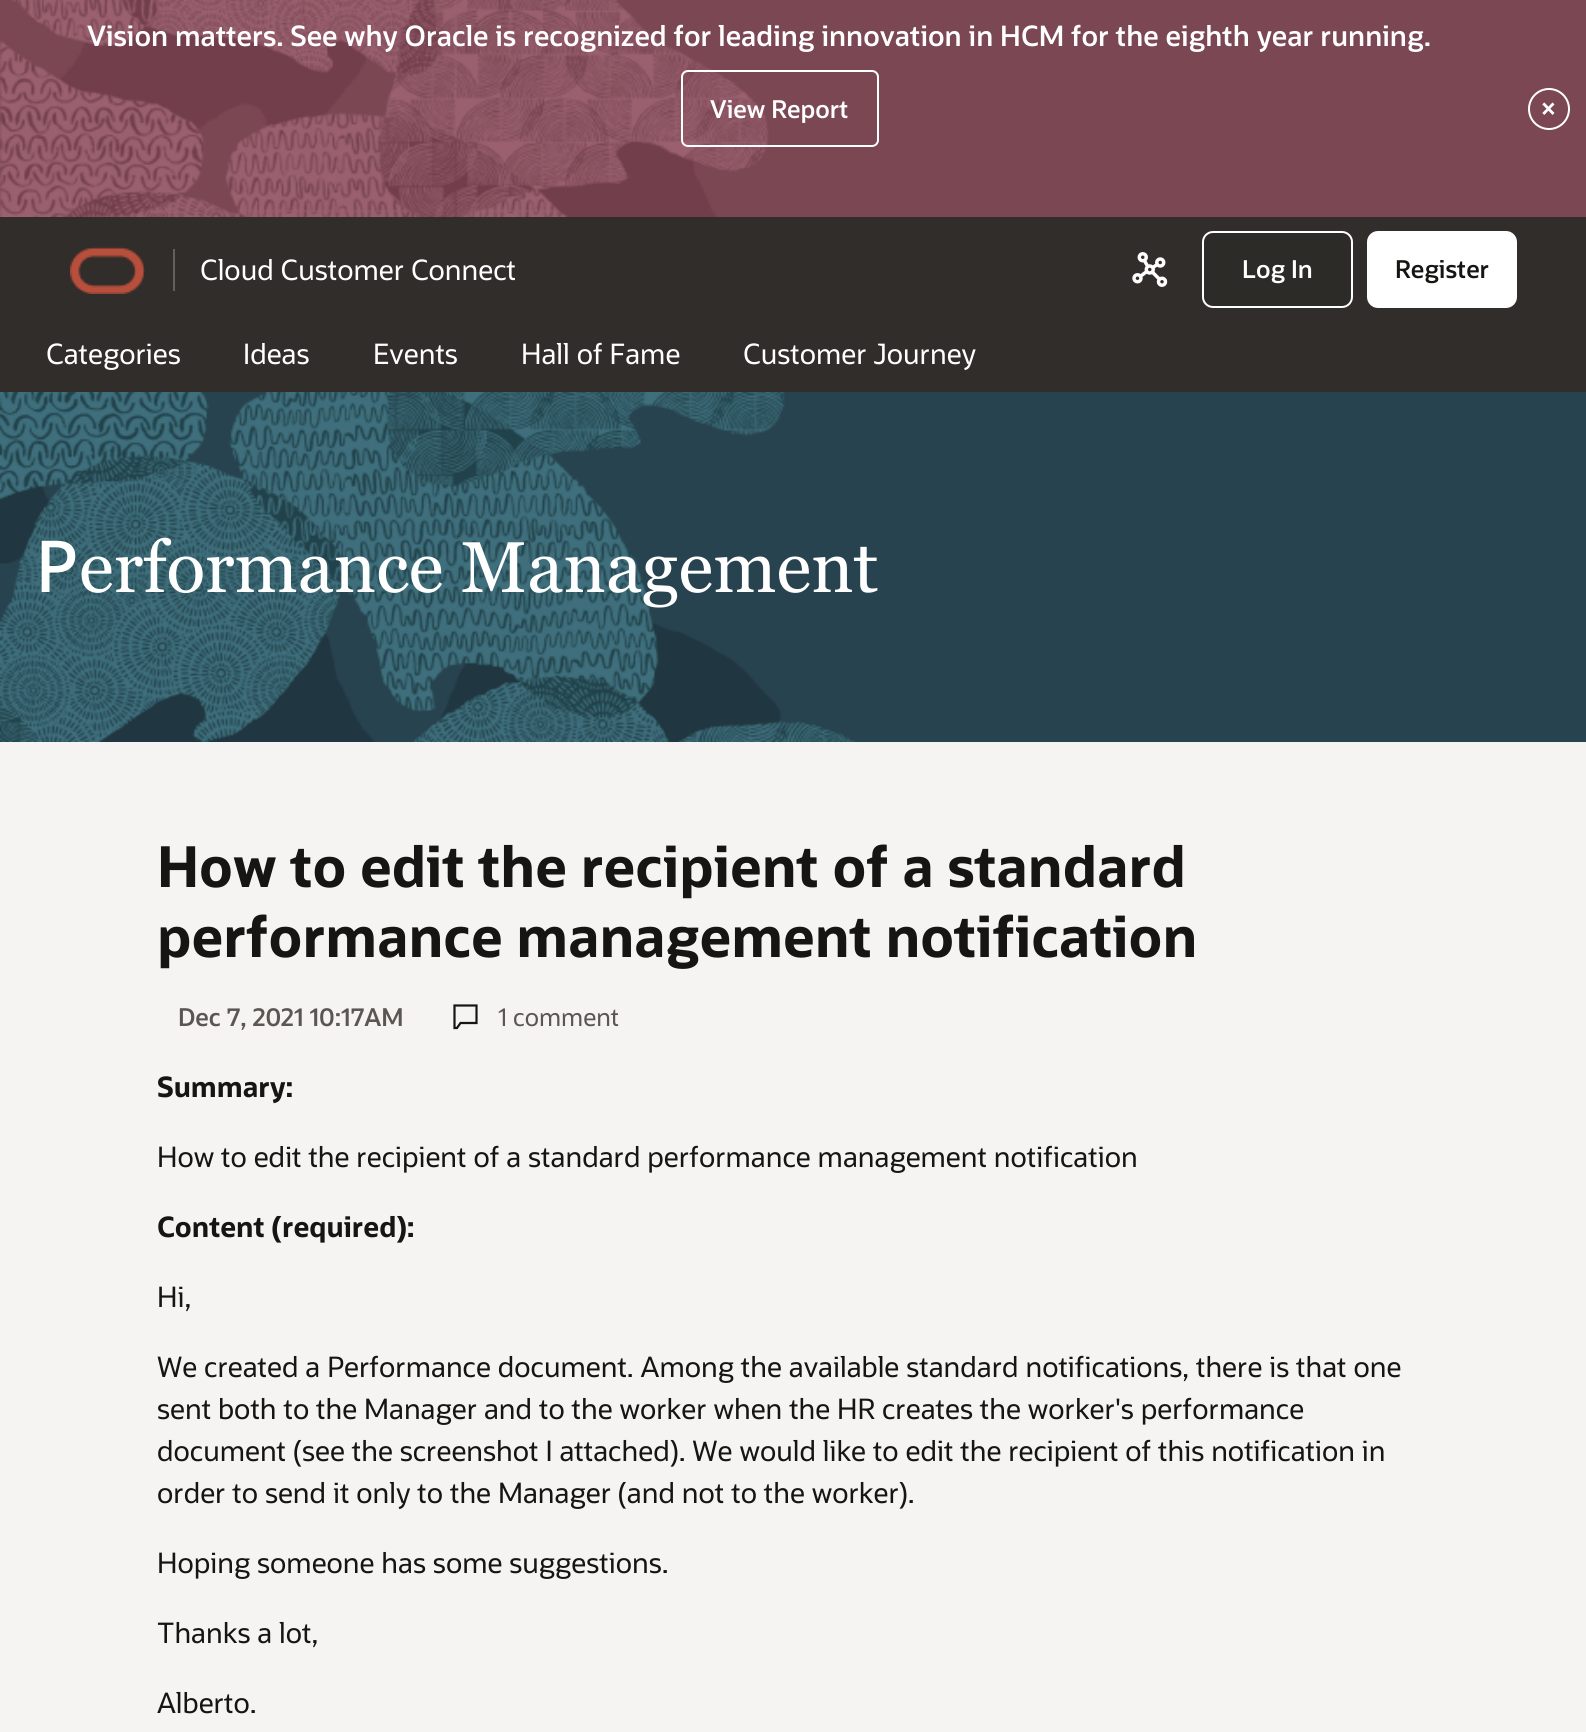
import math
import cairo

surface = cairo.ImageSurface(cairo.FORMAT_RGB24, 1586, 1732)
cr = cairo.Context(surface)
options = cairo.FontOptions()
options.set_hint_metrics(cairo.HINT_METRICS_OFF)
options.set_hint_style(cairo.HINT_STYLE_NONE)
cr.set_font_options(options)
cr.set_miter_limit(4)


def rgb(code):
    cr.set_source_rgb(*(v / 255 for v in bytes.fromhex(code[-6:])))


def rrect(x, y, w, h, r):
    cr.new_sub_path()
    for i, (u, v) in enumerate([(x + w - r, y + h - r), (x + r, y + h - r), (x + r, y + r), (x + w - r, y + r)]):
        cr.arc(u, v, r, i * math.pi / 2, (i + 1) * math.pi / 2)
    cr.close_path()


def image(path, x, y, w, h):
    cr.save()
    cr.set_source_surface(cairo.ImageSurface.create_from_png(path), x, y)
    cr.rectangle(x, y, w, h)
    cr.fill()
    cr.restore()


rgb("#f5f4f2")
cr.paint()
rgb("#7a4753")
cr.rectangle(769, 0, 817, 217)
cr.fill()
image("img/1.png", 0, 0, 769, 217)
rrect(682, 71, 196, 75, 6)
rgb("#ffffff")
cr.stroke()
cr.arc(1549, 109, 20, 0, 2 * math.pi)
cr.stroke()
rgb("#302d2a")
cr.rectangle(0, 217, 1586, 105)
cr.fill()
image("img/2.png", 70, 246, 75, 48)
rgb("#665f5b")
cr.rectangle(173, 249, 2, 42)
cr.fill()
image("img/3.png", 1132, 252, 36, 35)
rgb("#2d2b28")
rrect(1203, 232, 149, 75, 10)
cr.fill_preserve()
rgb("#ffffff")
cr.stroke()
rrect(1368, 232, 148, 75, 10)
cr.fill_preserve()
cr.stroke()
rgb("#312d2a")
cr.rectangle(0, 322, 1586, 70)
cr.fill()
rgb("#284350")
cr.rectangle(855, 392, 731, 350)
cr.fill()
image("img/4.png", 0, 392, 855, 350)
cr.new_path()
cr.move_to(476.5, 1005.5)
cr.line_to(454.5, 1005.5)
cr.line_to(454.5, 1028)
cr.line_to(457, 1028)
cr.line_to(460.5, 1023)
cr.line_to(476.5, 1023)
cr.close_path()
rgb("#161513")
cr.set_line_width(2.2)
cr.stroke()
cr.select_font_face("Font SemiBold")
cr.set_font_size(28)
rgb("#ffffff")
cr.move_to(87, 46)
cr.show_text("Vision matters. See why Oracle is recognized for leading innovation in HCM for the eighth year running.")
cr.set_font_size(24.5)
cr.move_to(710, 118)
cr.show_text("View Report")
cr.set_font_size(28)
cr.move_to(1540, 119)
cr.show_text("×")
cr.select_font_face("Font")
cr.move_to(200, 280)
cr.show_text("Cloud Customer Connect")
cr.select_font_face("Font SemiBold")
cr.set_font_size(24.5)
cr.move_to(1242, 278)
cr.show_text("Log In")
rgb("#161513")
cr.move_to(1395, 278)
cr.show_text("Register")
cr.select_font_face("Font")
cr.set_font_size(28)
rgb("#ffffff")
for x, y, s in [
    (46, 364, "Categories"),
    (243, 364, "Ideas"),
    (373, 364, "Events"),
    (521, 364, "Hall of Fame"),
    (743, 364, "Customer Journey"),
]:
    cr.move_to(x, y)
    cr.show_text(s)
cr.select_font_face("Noto Sans Medium")
cr.set_font_size(71.75)
cr.move_to(35, 592)
cr.show_text("P")
cr.select_font_face("Georgia")
cr.move_to(79, 592)
cr.show_text("erformance Management")
cr.select_font_face("Font", cairo.FONT_SLANT_NORMAL, cairo.FONT_WEIGHT_BOLD)
cr.set_font_size(56)
rgb("#161513")
cr.move_to(157, 887)
cr.show_text("How to edit the recipient of a standard")
cr.move_to(157, 957)
cr.show_text("performance management notification")
cr.select_font_face("Font SemiBold")
cr.set_font_size(24.5)
rgb("#5b5652")
cr.move_to(178, 1026)
cr.show_text("Dec 7, 2021 10:17AM")
cr.select_font_face("Font")
cr.move_to(498, 1026)
cr.show_text("1 comment")
cr.select_font_face("Font", cairo.FONT_SLANT_NORMAL, cairo.FONT_WEIGHT_BOLD)
cr.set_font_size(28)
rgb("#161513")
cr.move_to(157, 1097)
cr.show_text("Summary:")
cr.select_font_face("Font")
cr.move_to(157, 1167)
cr.show_text("How to edit the recipient of a standard performance management notification")
cr.select_font_face("Font", cairo.FONT_SLANT_NORMAL, cairo.FONT_WEIGHT_BOLD)
cr.move_to(157, 1237)
cr.show_text("Content (required):")
cr.select_font_face("Font")
for x, y, s in [
    (157, 1307, "Hi,"),
    (157, 1377, "We created a Performance document. Among the available standard notifications, there is that one"),
    (157, 1419, "sent both to the Manager and to the worker when the HR creates the worker's performance"),
    (157, 1461, "document (see the screenshot I attached). We would like to edit the recipient of this notification in"),
    (157, 1503, "order to send it only to the Manager (and not to the worker)."),
    (157, 1573, "Hoping someone has some suggestions."),
    (157, 1643, "Thanks a lot,"),
    (157, 1713, "Alberto."),
]:
    cr.move_to(x, y)
    cr.show_text(s)
surface.write_to_png("page.png")
